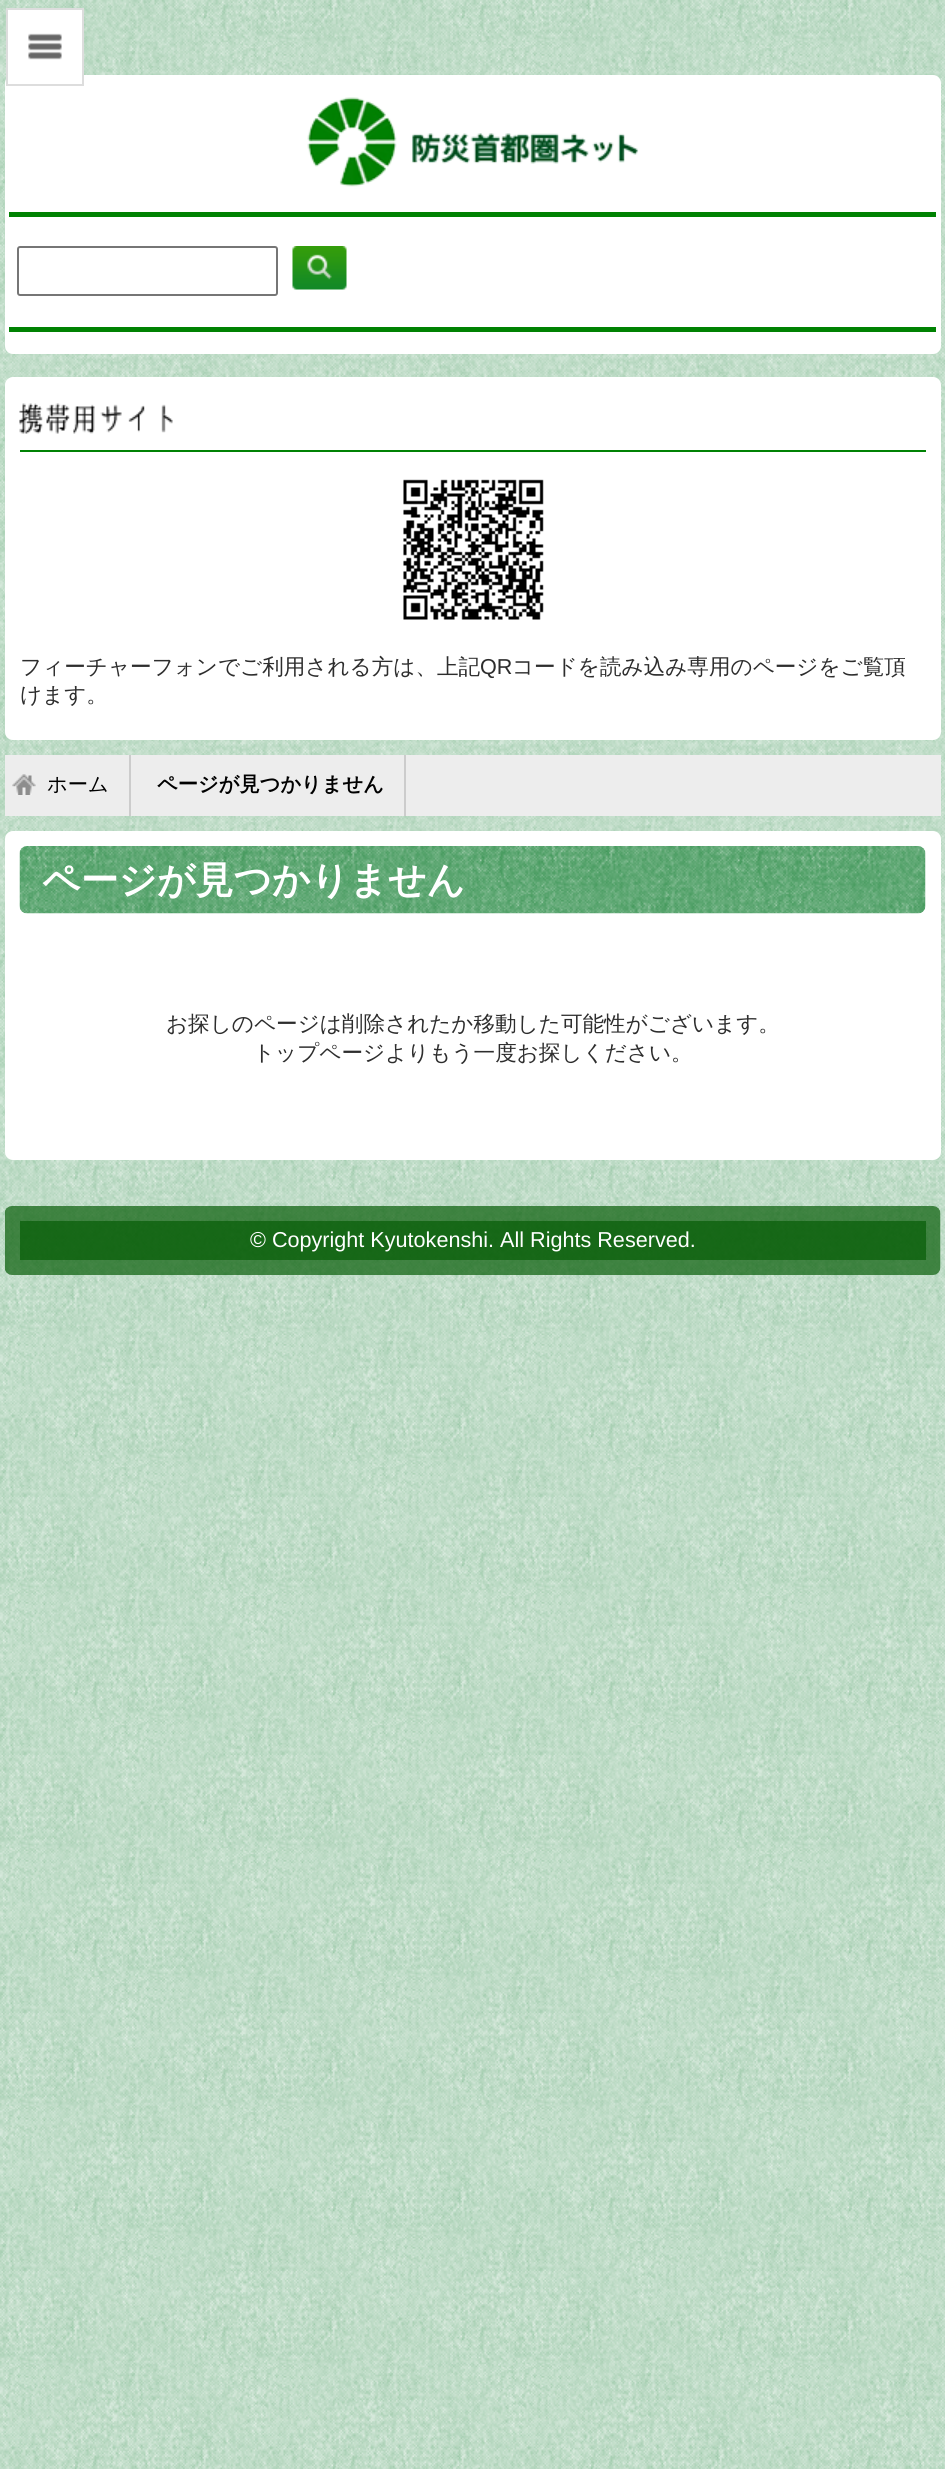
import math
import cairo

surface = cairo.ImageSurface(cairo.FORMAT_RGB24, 945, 2469)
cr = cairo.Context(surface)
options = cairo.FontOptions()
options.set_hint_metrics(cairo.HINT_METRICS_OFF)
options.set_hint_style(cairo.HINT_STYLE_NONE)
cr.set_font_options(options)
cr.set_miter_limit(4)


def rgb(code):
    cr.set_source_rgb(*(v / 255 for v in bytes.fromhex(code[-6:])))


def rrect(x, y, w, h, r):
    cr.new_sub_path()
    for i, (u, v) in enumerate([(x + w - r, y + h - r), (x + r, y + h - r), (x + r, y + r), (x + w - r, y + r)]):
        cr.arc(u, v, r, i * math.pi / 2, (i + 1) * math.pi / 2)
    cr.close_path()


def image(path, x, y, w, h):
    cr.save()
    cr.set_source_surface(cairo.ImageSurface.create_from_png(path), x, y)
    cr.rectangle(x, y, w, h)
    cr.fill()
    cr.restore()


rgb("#ffffff")
cr.paint()
image("img/1.png", 0, 0, 945, 2469)
rgb("#ffffff")
rrect(5, 75, 936, 279, 8)
cr.fill()
cr.rectangle(8, 10, 74, 67)
cr.fill()
image("img/2.png", 28, 33, 34, 27)
cr.rectangle(7, 9, 76, 76)
rgb("#dddddd")
cr.stroke()
image("img/3.png", 307, 97, 332, 92)
rgb("#008202")
cr.rectangle(9, 212, 927, 5)
cr.fill()
cr.rectangle(9, 327, 927, 5)
cr.fill()
rrect(18, 247, 259, 48, 2)
rgb("#767676")
cr.stroke()
image("img/4.png", 292, 246, 55, 44)
rgb("#ffffff")
rrect(5, 377, 936, 363, 8)
cr.fill()
rgb("#008204")
cr.rectangle(20, 450, 906, 2)
cr.fill()
image("img/5.png", 19, 403, 154, 31)
image("img/6.png", 403, 479, 141, 141)
rgb("#ededed")
cr.rectangle(5, 755, 936, 61)
cr.fill()
image("img/7.png", 12, 774, 24, 21)
rgb("#cccccc")
cr.rectangle(129, 755, 2, 61)
cr.fill()
cr.rectangle(404, 755, 2, 61)
cr.fill()
rgb("#ffffff")
rrect(5, 831, 936, 329, 8)
cr.fill()
image("img/8.png", 19, 846, 907, 68)
image("img/9.png", 5, 1206, 936, 69)
cr.set_source_rgba(0.027, 0.365, 0.027, 0.7)
cr.rectangle(20, 1221, 906, 39)
cr.fill()
cr.select_font_face("WenQuanYi Zen Hei Medium")
cr.set_font_size(21.6)
rgb("#2d2d2d")
cr.move_to(20, 674)
cr.show_text("フィーチャーフォンでご利用される方は、上記")
cr.select_font_face("Liberation Sans")
cr.move_to(480, 674)
cr.show_text("QR")
cr.select_font_face("WenQuanYi Zen Hei Medium")
cr.move_to(512, 674)
cr.show_text("コードを読み込み専用のページをご覧頂")
cr.move_to(20, 702)
cr.show_text("けます。")
cr.set_font_size(20.25)
rgb("#000000")
cr.move_to(47, 791)
cr.show_text("ホーム")
cr.select_font_face("WenQuanYi Zen Hei", cairo.FONT_SLANT_NORMAL, cairo.FONT_WEIGHT_BOLD)
cr.move_to(157, 791)
cr.show_text("ページが見つかりません")
cr.set_font_size(37.75)
rgb("#ffffff")
cr.move_to(42, 893)
cr.show_text("ページが見つかりません")
cr.select_font_face("WenQuanYi Zen Hei Medium")
cr.set_font_size(21.6)
rgb("#2d2d2d")
cr.move_to(166, 1031)
cr.show_text("お探しのページは削除されたか移動した可能性がございます。")
cr.move_to(253, 1060)
cr.show_text("トップページよりもう一度お探しください。")
cr.select_font_face("Liberation Sans")
rgb("#ffffff")
cr.move_to(250, 1247)
cr.show_text("© Copyright Kyutokenshi. All Rights Reserved.")
surface.write_to_png("page.png")
